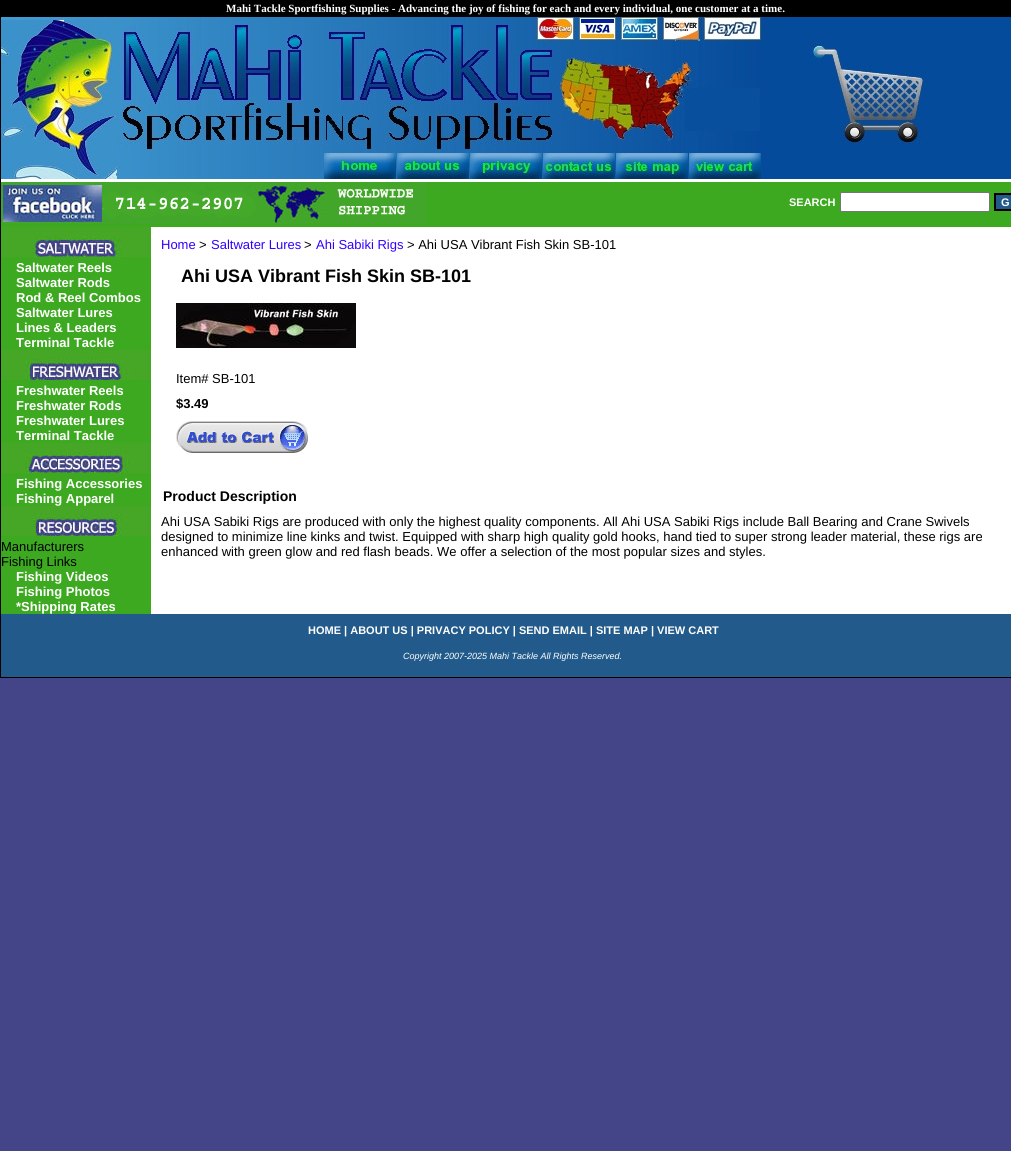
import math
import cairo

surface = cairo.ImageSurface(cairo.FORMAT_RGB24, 1011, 1151)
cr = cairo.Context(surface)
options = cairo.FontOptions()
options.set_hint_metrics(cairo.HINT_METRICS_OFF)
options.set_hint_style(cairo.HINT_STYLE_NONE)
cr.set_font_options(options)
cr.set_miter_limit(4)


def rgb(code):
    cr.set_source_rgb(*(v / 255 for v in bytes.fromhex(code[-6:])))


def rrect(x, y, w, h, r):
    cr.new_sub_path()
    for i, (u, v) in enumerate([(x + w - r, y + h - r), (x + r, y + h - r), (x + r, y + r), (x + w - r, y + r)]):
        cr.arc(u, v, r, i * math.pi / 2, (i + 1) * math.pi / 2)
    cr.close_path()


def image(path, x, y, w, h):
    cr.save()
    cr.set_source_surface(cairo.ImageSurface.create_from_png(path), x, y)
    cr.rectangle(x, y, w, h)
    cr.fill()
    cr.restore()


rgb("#000000")
cr.paint()
image("img/1.png", 0, 678, 1011, 473)
rgb("#ffffff")
cr.rectangle(1, 179, 1010, 435)
cr.fill()
image("img/2.png", 1, 17, 1010, 162)
rgb("#3da920")
cr.rectangle(1, 182, 1010, 45)
cr.fill()
image("img/3.png", 1, 182, 425, 42)
rgb("#ffffff")
rrect(840.5, 192.5, 149, 19, 1.5)
cr.fill_preserve()
rgb("#767676")
cr.set_line_width(1)
cr.stroke()
rgb("#225b8b")
cr.rectangle(995, 194, 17, 16)
cr.fill_preserve()
rgb("#000000")
cr.set_line_width(2)
cr.stroke()
rgb("#3da920")
cr.rectangle(1, 257, 150, 357)
cr.fill()
image("img/4.png", 1, 227, 150, 30)
image("img/5.png", 1, 350, 150, 30)
image("img/6.png", 1, 443, 150, 30)
image("img/7.png", 1, 506, 150, 30)
image("img/8.png", 176, 303, 180, 45)
image("img/9.png", 176, 421, 132, 32)
rgb("#225b8b")
cr.rectangle(1, 614, 1010, 63)
cr.fill()
cr.select_font_face("Liberation Serif", cairo.FONT_SLANT_NORMAL, cairo.FONT_WEIGHT_BOLD)
cr.set_font_size(11)
rgb("#ffffff")
cr.move_to(226, 12)
cr.show_text("Mahi Tackle Sportfishing Supplies - Advancing the joy of fishing for each and every individual, one customer at a time.")
cr.select_font_face("Liberation Sans", cairo.FONT_SLANT_NORMAL, cairo.FONT_WEIGHT_BOLD)
cr.move_to(789, 206)
cr.show_text("SEARCH")
cr.move_to(1001, 206)
cr.show_text("G")
cr.set_font_size(13)
for x, y, s in [
    (16, 272, "Saltwater Reels"),
    (16, 287, "Saltwater Rods"),
    (16, 302, "Rod & Reel Combos"),
    (16, 317, "Saltwater Lures"),
    (16, 332, "Lines & Leaders"),
    (16, 347, "Terminal Tackle"),
    (16, 395, "Freshwater Reels"),
    (16, 410, "Freshwater Rods"),
    (16, 425, "Freshwater Lures"),
    (16, 440, "Terminal Tackle"),
    (16, 488, "Fishing Accessories"),
    (16, 503, "Fishing Apparel"),
]:
    cr.move_to(x, y)
    cr.show_text(s)
cr.select_font_face("Liberation Sans")
rgb("#000000")
cr.move_to(1, 551)
cr.show_text("Manufacturers")
cr.move_to(1, 566)
cr.show_text("Fishing Links")
cr.select_font_face("Liberation Sans", cairo.FONT_SLANT_NORMAL, cairo.FONT_WEIGHT_BOLD)
rgb("#ffffff")
for x, y, s in [
    (16, 581, "Fishing Videos"),
    (16, 596, "Fishing Photos"),
    (16, 611, "*Shipping Rates"),
]:
    cr.move_to(x, y)
    cr.show_text(s)
cr.select_font_face("Liberation Sans")
rgb("#3300ff")
cr.move_to(161, 249)
cr.show_text("Home")
rgb("#000000")
cr.move_to(199, 249)
cr.show_text(">")
rgb("#3300ff")
cr.move_to(211, 249)
cr.show_text("Saltwater Lures")
rgb("#000000")
cr.move_to(304, 249)
cr.show_text(">")
rgb("#3300ff")
cr.move_to(316, 249)
cr.show_text("Ahi Sabiki Rigs")
rgb("#000000")
cr.move_to(407, 249)
cr.show_text("> Ahi USA Vibrant Fish Skin SB-101")
cr.select_font_face("Liberation Sans", cairo.FONT_SLANT_NORMAL, cairo.FONT_WEIGHT_BOLD)
cr.set_font_size(18)
cr.move_to(181, 282)
cr.show_text("Ahi USA Vibrant Fish Skin SB-101")
cr.select_font_face("Liberation Sans")
cr.set_font_size(13)
cr.move_to(176, 383)
cr.show_text("Item# SB-101")
cr.select_font_face("Liberation Sans", cairo.FONT_SLANT_NORMAL, cairo.FONT_WEIGHT_BOLD)
cr.move_to(176, 408)
cr.show_text("$3.49")
cr.set_font_size(14)
cr.move_to(163, 501)
cr.show_text("Product Description")
cr.select_font_face("Liberation Sans")
cr.set_font_size(13)
for x, y, s in [
    (161, 526, "Ahi USA Sabiki Rigs are produced with only the highest quality components. All Ahi USA Sabiki Rigs include Ball Bearing and Crane Swivels"),
    (161, 541, "designed to minimize line kinks and twist. Equipped with sharp high quality gold hooks, hand tied to super strong leader material, these rigs are"),
    (161, 556, "enhanced with green glow and red flash beads. We offer a selection of the most popular sizes and styles."),
]:
    cr.move_to(x, y)
    cr.show_text(s)
cr.select_font_face("Liberation Sans", cairo.FONT_SLANT_NORMAL, cairo.FONT_WEIGHT_BOLD)
cr.set_font_size(11)
rgb("#ffffff")
cr.move_to(308, 634)
cr.show_text("HOME | ABOUT US | PRIVACY POLICY | SEND EMAIL | SITE MAP | VIEW CART")
cr.select_font_face("Liberation Sans", cairo.FONT_SLANT_ITALIC)
cr.set_font_size(9)
cr.move_to(403, 659)
cr.show_text("Copyright 2007-2025 Mahi Tackle All Rights Reserved.")
surface.write_to_png("page.png")
